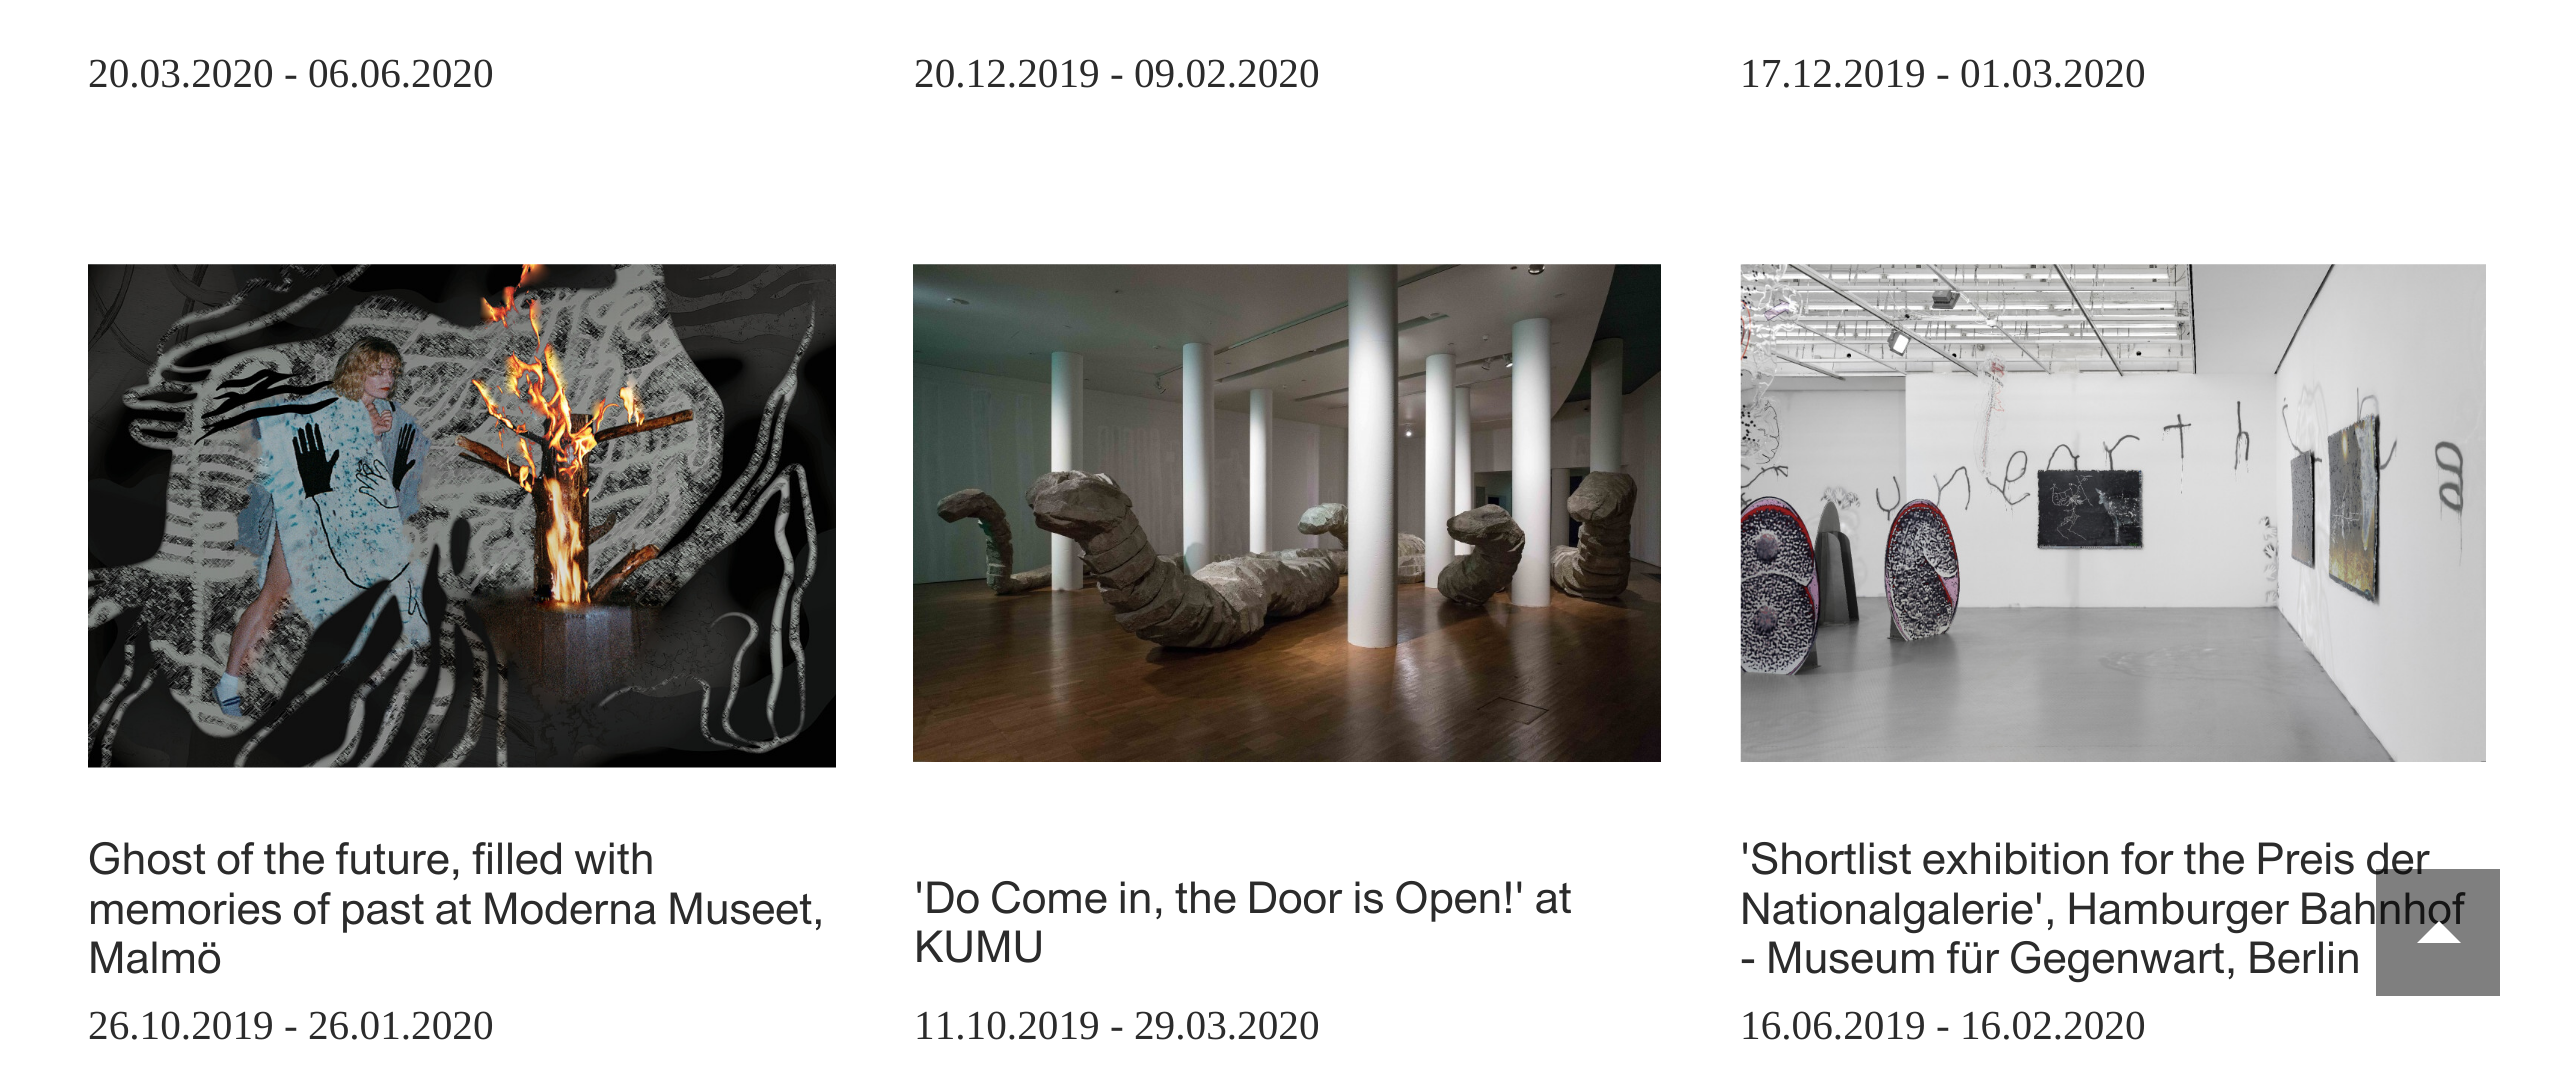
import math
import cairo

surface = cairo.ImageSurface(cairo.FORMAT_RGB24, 2575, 1071)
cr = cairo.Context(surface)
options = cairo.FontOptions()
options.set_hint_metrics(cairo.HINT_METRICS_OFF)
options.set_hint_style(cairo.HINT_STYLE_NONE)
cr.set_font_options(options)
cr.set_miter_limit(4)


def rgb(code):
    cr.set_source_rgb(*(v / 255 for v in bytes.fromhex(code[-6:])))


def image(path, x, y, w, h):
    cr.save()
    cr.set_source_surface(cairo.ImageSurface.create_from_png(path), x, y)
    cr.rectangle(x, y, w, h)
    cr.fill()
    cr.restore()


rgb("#ffffff")
cr.paint()
image("img/1.png", 88, 264, 748, 504)
image("img/2.png", 913, 264, 748, 498)
image("img/3.png", 1740, 264, 746, 498)
cr.select_font_face("Liberation Serif")
cr.set_font_size(41.25)
rgb("#2b2b2b")
for x, y, s in [
    (88, 87, "20.03.2020 - 06.06.2020"),
    (914, 87, "20.12.2019 - 09.02.2020"),
    (1740, 87, "17.12.2019 - 01.03.2020"),
]:
    cr.move_to(x, y)
    cr.show_text(s)
cr.select_font_face("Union")
cr.set_font_size(44)
for x, y, s in [
    (88, 874, "Ghost of the future, filled with"),
    (88, 924, "memories of past at Moderna Museet,"),
    (88, 973, "Malmö"),
]:
    cr.move_to(x, y)
    cr.show_text(s)
cr.select_font_face("Liberation Serif")
cr.set_font_size(41.25)
cr.move_to(88, 1039)
cr.show_text("26.10.2019 - 26.01.2020")
cr.select_font_face("Union")
cr.set_font_size(44)
cr.move_to(914, 913)
cr.show_text("'Do Come in, the Door is Open!' at")
cr.move_to(914, 962)
cr.show_text("KUMU")
cr.select_font_face("Liberation Serif")
cr.set_font_size(41.25)
cr.move_to(914, 1039)
cr.show_text("11.10.2019 - 29.03.2020")
cr.select_font_face("Union")
cr.set_font_size(44)
for x, y, s in [
    (1740, 874, "'Shortlist exhibition for the Preis der"),
    (1740, 924, "Nationalgalerie', Hamburger Bahnhof"),
    (1740, 973, "- Museum für Gegenwart, Berlin"),
]:
    cr.move_to(x, y)
    cr.show_text(s)
cr.select_font_face("Liberation Serif")
cr.set_font_size(41.25)
cr.move_to(1740, 1039)
cr.show_text("16.06.2019 - 16.02.2020")
cr.set_source_rgba(0, 0, 0, 0.5)
cr.rectangle(2376, 869, 124, 127)
cr.fill()
rgb("#ffffff")
cr.new_path()
cr.move_to(2461, 943)
cr.line_to(2417, 943)
cr.line_to(2439, 921)
cr.close_path()
cr.fill()
surface.write_to_png("page.png")
